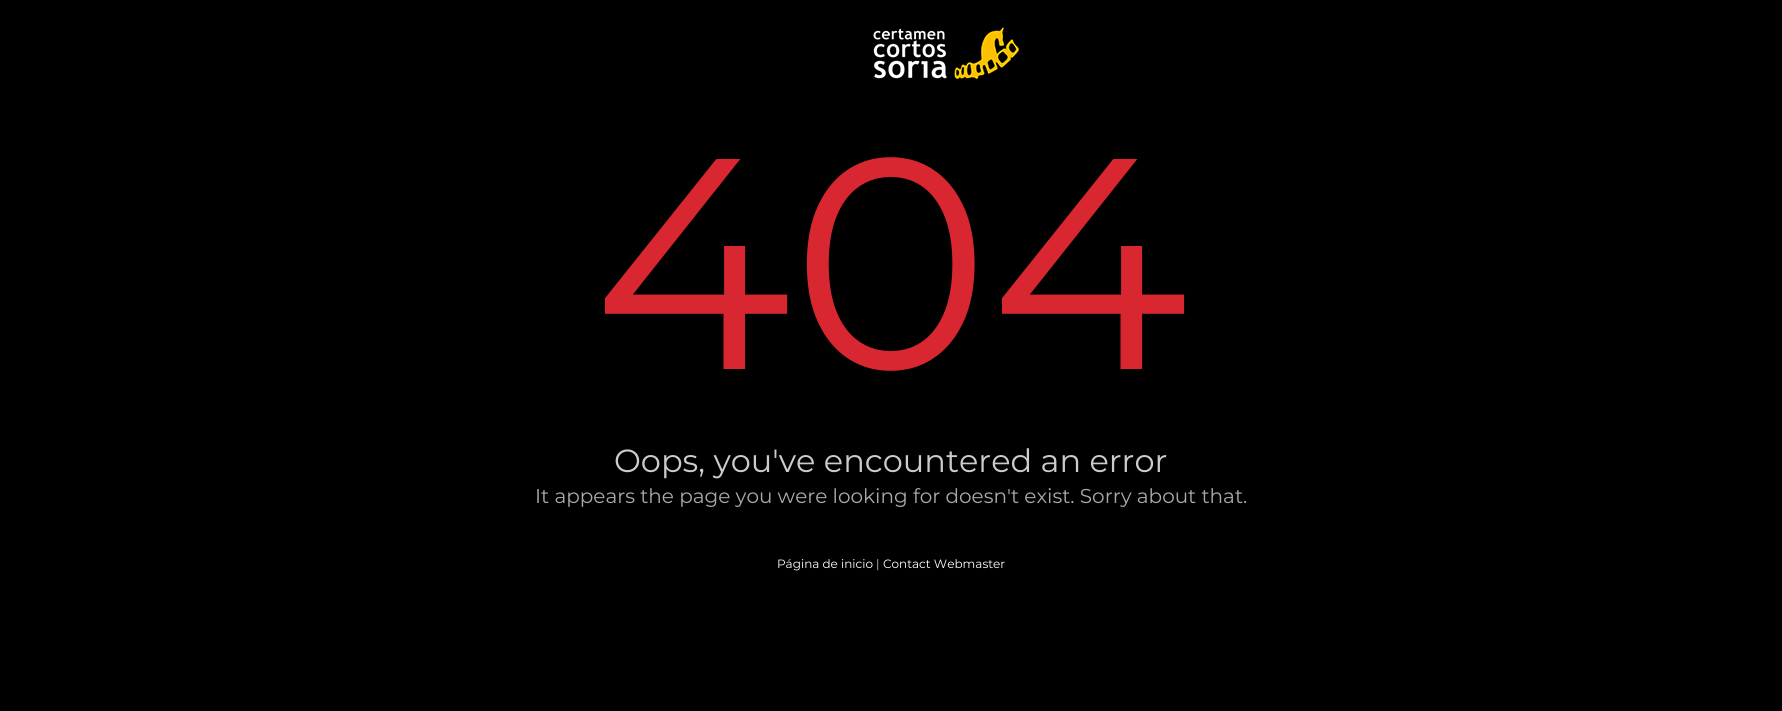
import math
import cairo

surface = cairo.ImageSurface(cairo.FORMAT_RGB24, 1782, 711)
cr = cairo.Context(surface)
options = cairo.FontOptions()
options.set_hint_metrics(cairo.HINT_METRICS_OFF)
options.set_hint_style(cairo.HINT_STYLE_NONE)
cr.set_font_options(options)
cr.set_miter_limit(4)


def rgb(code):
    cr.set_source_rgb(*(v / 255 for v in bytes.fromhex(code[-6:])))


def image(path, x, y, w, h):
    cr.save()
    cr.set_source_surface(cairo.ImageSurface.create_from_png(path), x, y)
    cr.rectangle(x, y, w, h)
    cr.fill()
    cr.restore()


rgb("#000000")
cr.paint()
image("img/1.png", 873, 27, 146, 52)
cr.select_font_face("Montserrat")
cr.set_font_size(300)
rgb("#d82731")
cr.move_to(593, 369)
cr.show_text("404")
cr.set_font_size(32)
rgb("#cccccc")
cr.move_to(614, 472)
cr.show_text("Oops, you've encountered an error")
cr.set_font_size(20)
rgb("#aaaaaa")
cr.move_to(535, 503)
cr.show_text("It appears the page you were looking for doesn't exist. Sorry about that.")
cr.set_font_size(12)
rgb("#ffffff")
cr.move_to(777, 568)
cr.show_text("Página de inicio")
rgb("#cccccc")
cr.move_to(876, 568)
cr.show_text("|")
rgb("#ffffff")
cr.move_to(883, 568)
cr.show_text("Contact Webmaster")
surface.write_to_png("page.png")
